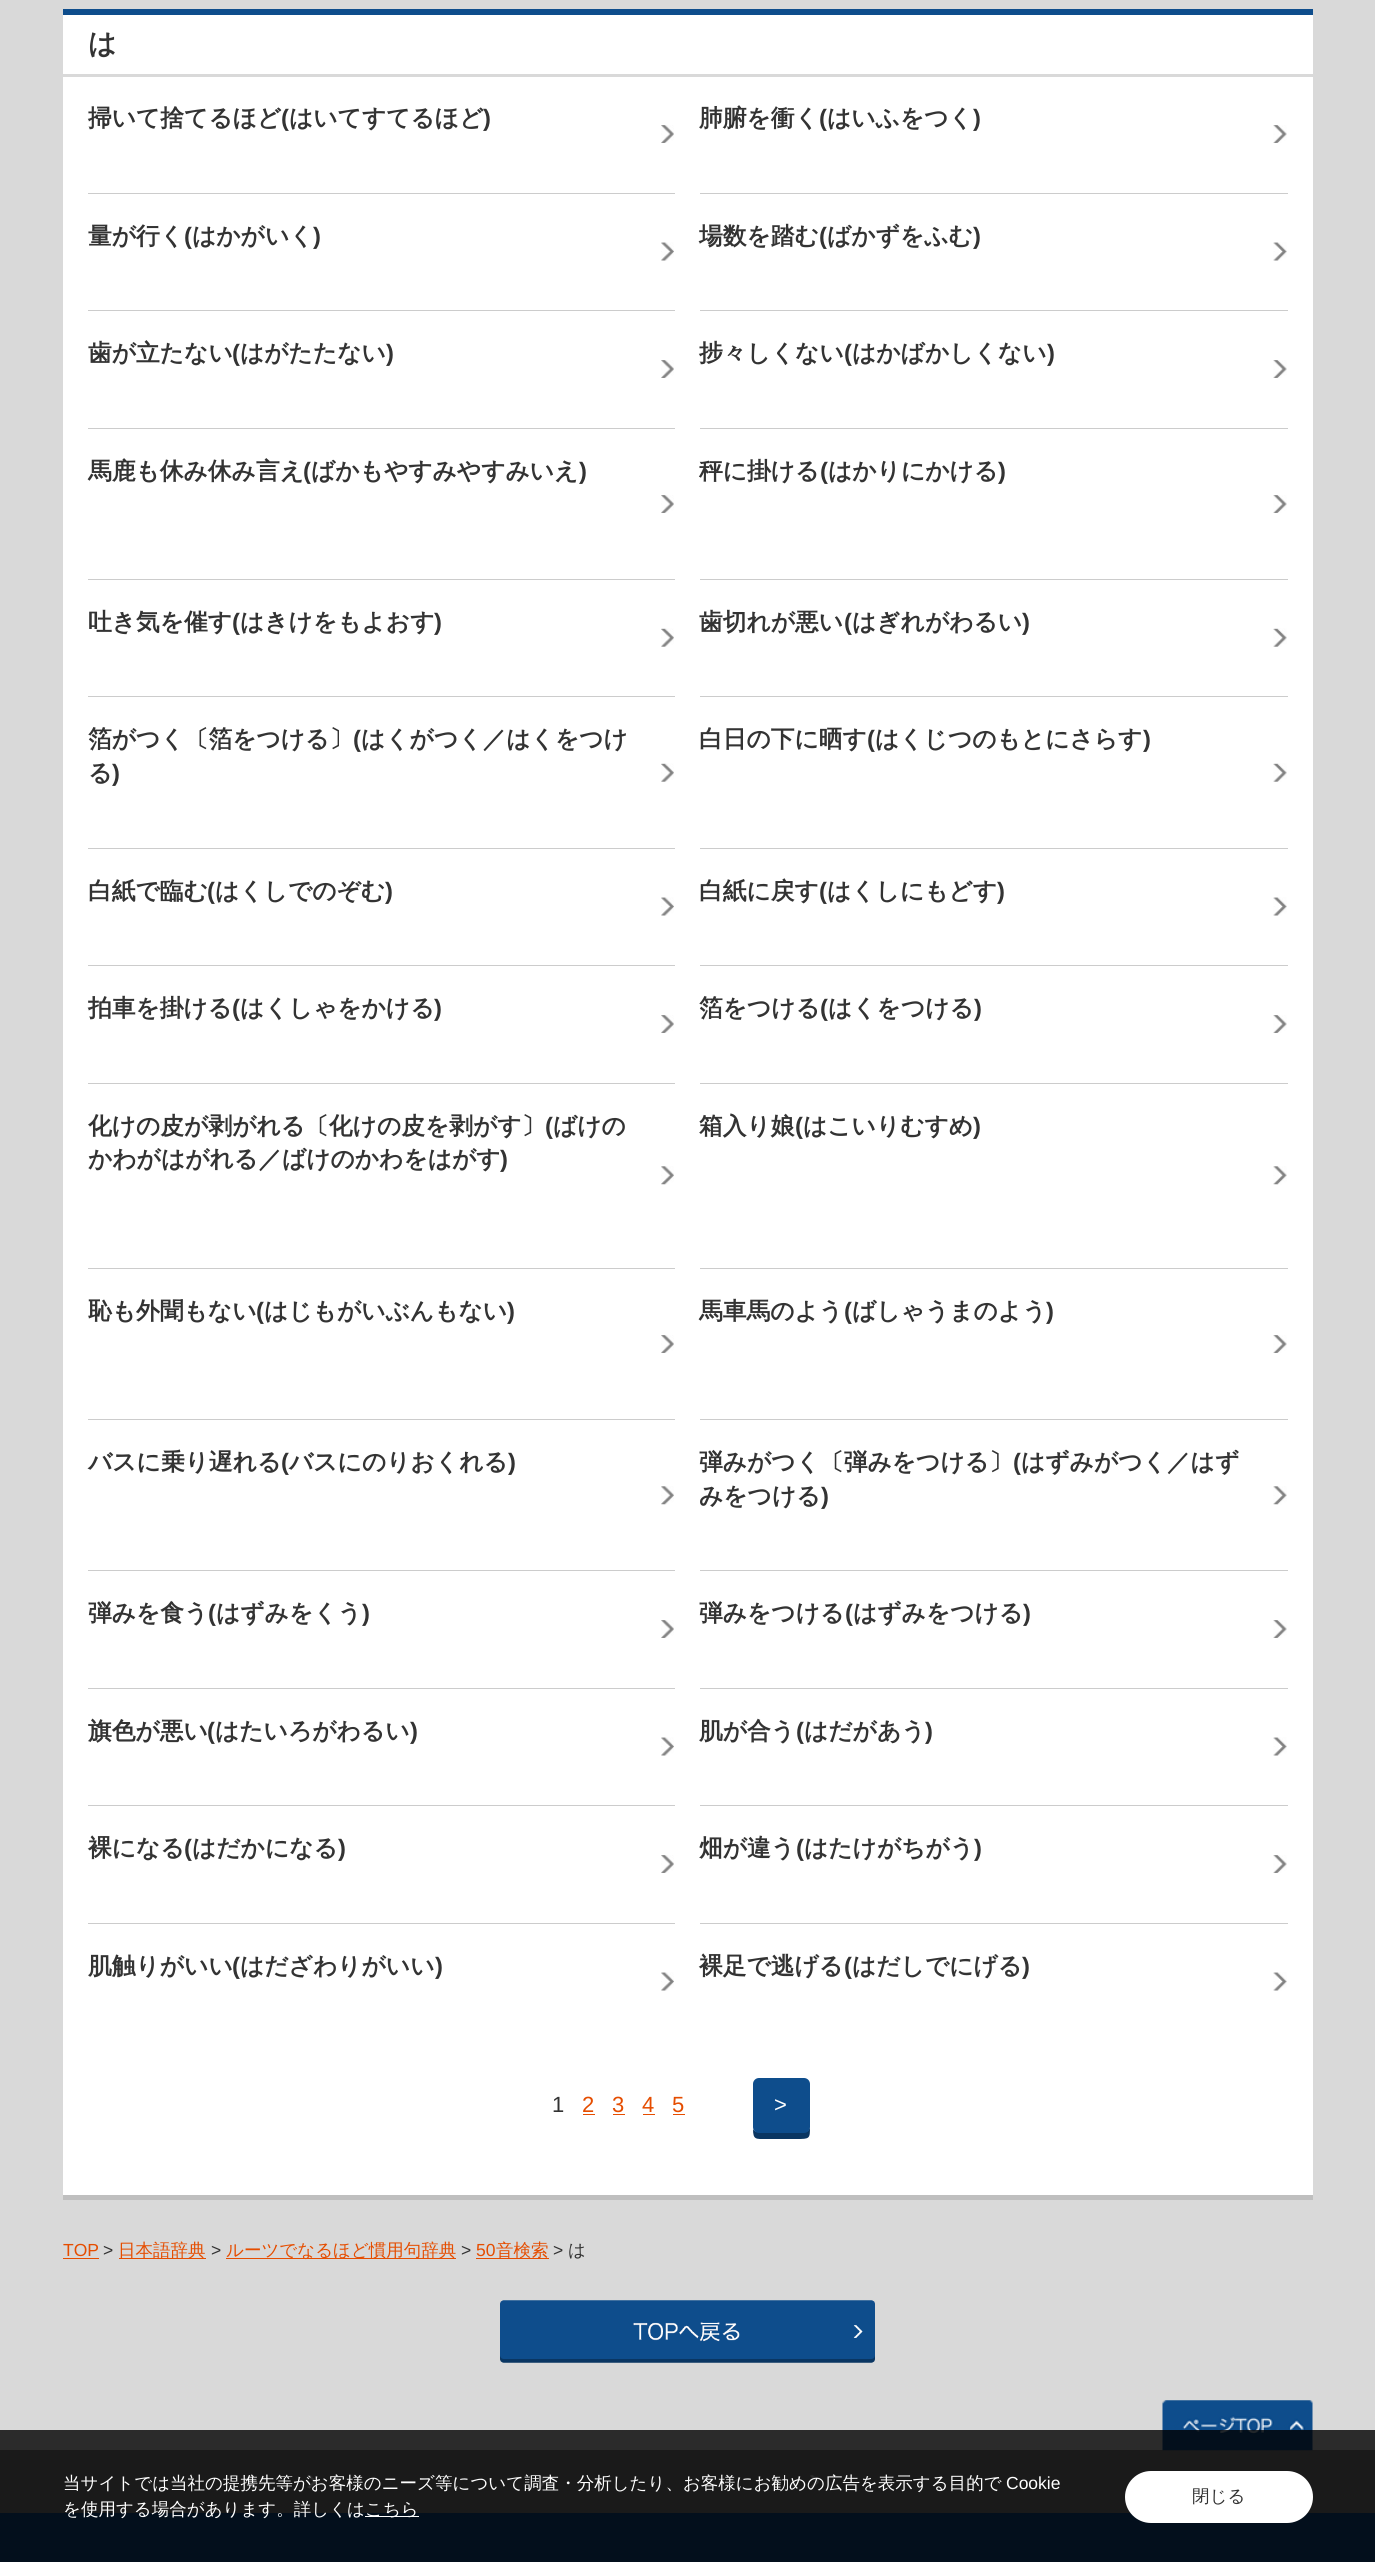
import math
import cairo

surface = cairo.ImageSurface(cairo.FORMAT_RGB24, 1375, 2562)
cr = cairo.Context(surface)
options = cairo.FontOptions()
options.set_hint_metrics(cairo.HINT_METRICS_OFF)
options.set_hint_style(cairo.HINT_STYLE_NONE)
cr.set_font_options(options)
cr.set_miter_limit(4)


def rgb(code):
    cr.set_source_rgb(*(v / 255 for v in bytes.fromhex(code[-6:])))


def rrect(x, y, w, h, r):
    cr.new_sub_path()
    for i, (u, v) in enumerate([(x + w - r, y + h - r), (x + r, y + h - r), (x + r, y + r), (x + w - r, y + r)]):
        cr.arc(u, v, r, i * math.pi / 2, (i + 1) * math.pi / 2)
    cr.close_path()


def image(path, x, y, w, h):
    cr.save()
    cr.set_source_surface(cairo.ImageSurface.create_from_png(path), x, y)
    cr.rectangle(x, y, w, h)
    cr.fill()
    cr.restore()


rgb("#d9d9d9")
cr.paint()
for x, y, w, h, color in [
    (63, 15, 1250, 2180, "#ffffff"),
    (63, 2195, 1250, 5, "#bfbfbf"),
    (63, 9, 1250, 6, "#0e4d8c"),
    (63, 74, 1250, 3, "#d9d9d9"),
]:
    rgb(color)
    cr.rectangle(x, y, w, h)
    cr.fill()
image("img/1.png", 661, 125, 13, 18)
image("img/2.png", 1273, 125, 14, 18)
image("img/3.png", 661, 242, 13, 19)
rgb("#cccccc")
cr.rectangle(88, 193, 587, 1)
cr.fill()
image("img/4.png", 1273, 242, 14, 19)
cr.rectangle(700, 193, 588, 1)
cr.fill()
image("img/5.png", 661, 360, 13, 18)
cr.rectangle(88, 310, 587, 1)
cr.fill()
image("img/6.png", 1273, 360, 14, 18)
cr.rectangle(700, 310, 588, 1)
cr.fill()
image("img/5.png", 661, 495, 13, 18)
cr.rectangle(88, 428, 587, 1)
cr.fill()
image("img/6.png", 1273, 495, 14, 18)
cr.rectangle(700, 428, 588, 1)
cr.fill()
image("img/7.png", 661, 628, 13, 19)
cr.rectangle(88, 579, 587, 1)
cr.fill()
image("img/8.png", 1273, 628, 14, 19)
cr.rectangle(700, 579, 588, 1)
cr.fill()
image("img/7.png", 661, 763, 13, 19)
cr.rectangle(88, 696, 587, 1)
cr.fill()
image("img/8.png", 1273, 763, 14, 19)
cr.rectangle(700, 696, 588, 1)
cr.fill()
image("img/3.png", 661, 897, 13, 19)
cr.rectangle(88, 848, 587, 1)
cr.fill()
image("img/4.png", 1273, 897, 14, 19)
cr.rectangle(700, 848, 588, 1)
cr.fill()
image("img/5.png", 661, 1015, 13, 18)
cr.rectangle(88, 965, 587, 1)
cr.fill()
image("img/6.png", 1273, 1015, 14, 18)
cr.rectangle(700, 965, 588, 1)
cr.fill()
image("img/9.png", 661, 1166, 13, 19)
cr.rectangle(88, 1083, 587, 1)
cr.fill()
image("img/10.png", 1273, 1166, 14, 19)
cr.rectangle(700, 1083, 588, 1)
cr.fill()
image("img/5.png", 661, 1335, 13, 18)
cr.rectangle(88, 1268, 587, 1)
cr.fill()
image("img/6.png", 1273, 1335, 14, 18)
cr.rectangle(700, 1268, 588, 1)
cr.fill()
image("img/9.png", 661, 1486, 13, 19)
cr.rectangle(88, 1419, 587, 1)
cr.fill()
image("img/10.png", 1273, 1486, 14, 19)
cr.rectangle(700, 1419, 588, 1)
cr.fill()
image("img/5.png", 661, 1620, 13, 18)
cr.rectangle(88, 1570, 587, 1)
cr.fill()
image("img/6.png", 1273, 1620, 14, 18)
cr.rectangle(700, 1570, 588, 1)
cr.fill()
image("img/3.png", 661, 1737, 13, 19)
cr.rectangle(88, 1688, 587, 1)
cr.fill()
image("img/4.png", 1273, 1737, 14, 19)
cr.rectangle(700, 1688, 588, 1)
cr.fill()
image("img/5.png", 661, 1855, 13, 18)
cr.rectangle(88, 1805, 587, 1)
cr.fill()
image("img/6.png", 1273, 1855, 14, 18)
cr.rectangle(700, 1805, 588, 1)
cr.fill()
image("img/3.png", 661, 1972, 13, 19)
cr.rectangle(88, 1923, 587, 1)
cr.fill()
image("img/4.png", 1273, 1972, 14, 19)
for x, y, w, h, color in [
    (700, 1923, 588, 1, "#cccccc"),
    (583, 2114, 12, 1, "#e54d00"),
    (613, 2114, 12, 1, "#e54d00"),
    (643, 2114, 12, 1, "#e54d00"),
    (673, 2114, 12, 1, "#e54d00"),
]:
    rgb(color)
    cr.rectangle(x, y, w, h)
    cr.fill()
rgb("#0a3662")
cr.new_path()
cr.move_to(753, 2129)
cr.curve_to(753, 2140, 756, 2139, 766, 2139)
cr.line_to(796, 2139)
cr.curve_to(810, 2139, 810, 2139, 810, 2126)
cr.curve_to(810, 2130, 807, 2132, 804, 2132)
cr.line_to(759, 2132)
cr.curve_to(756, 2132, 754, 2131, 753, 2129)
cr.close_path()
cr.fill()
rgb("#0e4d8c")
rrect(753, 2078, 57, 55, 6)
cr.fill()
for x, y, w, h, color in [
    (63, 2258, 36, 1, "#e54d00"),
    (119, 2258, 87, 1, "#e54d00"),
    (226, 2258, 230, 1, "#e54d00"),
    (476, 2258, 73, 1, "#e54d00"),
]:
    rgb(color)
    cr.rectangle(x, y, w, h)
    cr.fill()
image("img/11.png", 500, 2300, 375, 63)
rgb("#808080")
cr.rectangle(0, 2450, 1375, 63)
cr.fill()
image("img/12.png", 1162, 2400, 151, 51)
image("img/13.png", 307, 2475, 10, 14)
image("img/13.png", 537, 2475, 10, 14)
image("img/14.png", 810, 2475, 9, 14)
rgb("#0e4d8c")
cr.rectangle(0, 2513, 1375, 49)
cr.fill()
cr.set_source_rgba(0, 0, 0, 0.8)
cr.rectangle(0, 2430, 1375, 132)
cr.fill()
rgb("#ffffff")
cr.rectangle(365, 2516, 54, 1)
cr.fill()
rrect(1125, 2471, 188, 52, 26)
cr.fill()
cr.select_font_face("WenQuanYi Zen Hei", cairo.FONT_SLANT_NORMAL, cairo.FONT_WEIGHT_BOLD)
cr.set_font_size(28)
rgb("#333333")
cr.move_to(88, 53)
cr.show_text("は")
cr.set_font_size(23.75)
cr.move_to(88, 126)
cr.show_text("掃いて捨てるほど")
cr.select_font_face("Liberation Sans", cairo.FONT_SLANT_NORMAL, cairo.FONT_WEIGHT_BOLD)
cr.move_to(281, 126)
cr.show_text("(")
cr.select_font_face("WenQuanYi Zen Hei", cairo.FONT_SLANT_NORMAL, cairo.FONT_WEIGHT_BOLD)
cr.move_to(289, 126)
cr.show_text("はいてすてるほど")
cr.select_font_face("Liberation Sans", cairo.FONT_SLANT_NORMAL, cairo.FONT_WEIGHT_BOLD)
cr.move_to(483, 126)
cr.show_text(")")
cr.select_font_face("WenQuanYi Zen Hei", cairo.FONT_SLANT_NORMAL, cairo.FONT_WEIGHT_BOLD)
cr.move_to(699, 126)
cr.show_text("肺腑を衝く")
cr.select_font_face("Liberation Sans", cairo.FONT_SLANT_NORMAL, cairo.FONT_WEIGHT_BOLD)
cr.move_to(819, 126)
cr.show_text("(")
cr.select_font_face("WenQuanYi Zen Hei", cairo.FONT_SLANT_NORMAL, cairo.FONT_WEIGHT_BOLD)
cr.move_to(827, 126)
cr.show_text("はいふをつく")
cr.select_font_face("Liberation Sans", cairo.FONT_SLANT_NORMAL, cairo.FONT_WEIGHT_BOLD)
cr.move_to(973, 126)
cr.show_text(")")
cr.select_font_face("WenQuanYi Zen Hei", cairo.FONT_SLANT_NORMAL, cairo.FONT_WEIGHT_BOLD)
cr.move_to(88, 244)
cr.show_text("量が行く")
cr.select_font_face("Liberation Sans", cairo.FONT_SLANT_NORMAL, cairo.FONT_WEIGHT_BOLD)
cr.move_to(184, 244)
cr.show_text("(")
cr.select_font_face("WenQuanYi Zen Hei", cairo.FONT_SLANT_NORMAL, cairo.FONT_WEIGHT_BOLD)
cr.move_to(192, 244)
cr.show_text("はかがいく")
cr.select_font_face("Liberation Sans", cairo.FONT_SLANT_NORMAL, cairo.FONT_WEIGHT_BOLD)
cr.move_to(313, 244)
cr.show_text(")")
cr.select_font_face("WenQuanYi Zen Hei", cairo.FONT_SLANT_NORMAL, cairo.FONT_WEIGHT_BOLD)
cr.move_to(699, 244)
cr.show_text("場数を踏む")
cr.select_font_face("Liberation Sans", cairo.FONT_SLANT_NORMAL, cairo.FONT_WEIGHT_BOLD)
cr.move_to(819, 244)
cr.show_text("(")
cr.select_font_face("WenQuanYi Zen Hei", cairo.FONT_SLANT_NORMAL, cairo.FONT_WEIGHT_BOLD)
cr.move_to(827, 244)
cr.show_text("ばかずをふむ")
cr.select_font_face("Liberation Sans", cairo.FONT_SLANT_NORMAL, cairo.FONT_WEIGHT_BOLD)
cr.move_to(973, 244)
cr.show_text(")")
cr.select_font_face("WenQuanYi Zen Hei", cairo.FONT_SLANT_NORMAL, cairo.FONT_WEIGHT_BOLD)
cr.move_to(88, 361)
cr.show_text("歯が立たない")
cr.select_font_face("Liberation Sans", cairo.FONT_SLANT_NORMAL, cairo.FONT_WEIGHT_BOLD)
cr.move_to(232, 361)
cr.show_text("(")
cr.select_font_face("WenQuanYi Zen Hei", cairo.FONT_SLANT_NORMAL, cairo.FONT_WEIGHT_BOLD)
cr.move_to(240, 361)
cr.show_text("はがたたない")
cr.select_font_face("Liberation Sans", cairo.FONT_SLANT_NORMAL, cairo.FONT_WEIGHT_BOLD)
cr.move_to(386, 361)
cr.show_text(")")
cr.select_font_face("WenQuanYi Zen Hei", cairo.FONT_SLANT_NORMAL, cairo.FONT_WEIGHT_BOLD)
cr.move_to(699, 361)
cr.show_text("捗々しくない")
cr.select_font_face("Liberation Sans", cairo.FONT_SLANT_NORMAL, cairo.FONT_WEIGHT_BOLD)
cr.move_to(844, 361)
cr.show_text("(")
cr.select_font_face("WenQuanYi Zen Hei", cairo.FONT_SLANT_NORMAL, cairo.FONT_WEIGHT_BOLD)
cr.move_to(852, 361)
cr.show_text("はかばかしくない")
cr.select_font_face("Liberation Sans", cairo.FONT_SLANT_NORMAL, cairo.FONT_WEIGHT_BOLD)
cr.move_to(1047, 361)
cr.show_text(")")
cr.select_font_face("WenQuanYi Zen Hei", cairo.FONT_SLANT_NORMAL, cairo.FONT_WEIGHT_BOLD)
cr.move_to(88, 479)
cr.show_text("馬鹿も休み休み言え")
cr.select_font_face("Liberation Sans", cairo.FONT_SLANT_NORMAL, cairo.FONT_WEIGHT_BOLD)
cr.move_to(303, 479)
cr.show_text("(")
cr.select_font_face("WenQuanYi Zen Hei", cairo.FONT_SLANT_NORMAL, cairo.FONT_WEIGHT_BOLD)
cr.move_to(311, 479)
cr.show_text("ばかもやすみやすみいえ")
cr.select_font_face("Liberation Sans", cairo.FONT_SLANT_NORMAL, cairo.FONT_WEIGHT_BOLD)
cr.move_to(579, 479)
cr.show_text(")")
cr.select_font_face("WenQuanYi Zen Hei", cairo.FONT_SLANT_NORMAL, cairo.FONT_WEIGHT_BOLD)
cr.move_to(699, 479)
cr.show_text("秤に掛ける")
cr.select_font_face("Liberation Sans", cairo.FONT_SLANT_NORMAL, cairo.FONT_WEIGHT_BOLD)
cr.move_to(820, 479)
cr.show_text("(")
cr.select_font_face("WenQuanYi Zen Hei", cairo.FONT_SLANT_NORMAL, cairo.FONT_WEIGHT_BOLD)
cr.move_to(828, 479)
cr.show_text("はかりにかける")
cr.select_font_face("Liberation Sans", cairo.FONT_SLANT_NORMAL, cairo.FONT_WEIGHT_BOLD)
cr.move_to(998, 479)
cr.show_text(")")
cr.select_font_face("WenQuanYi Zen Hei", cairo.FONT_SLANT_NORMAL, cairo.FONT_WEIGHT_BOLD)
cr.move_to(88, 630)
cr.show_text("吐き気を催す")
cr.select_font_face("Liberation Sans", cairo.FONT_SLANT_NORMAL, cairo.FONT_WEIGHT_BOLD)
cr.move_to(232, 630)
cr.show_text("(")
cr.select_font_face("WenQuanYi Zen Hei", cairo.FONT_SLANT_NORMAL, cairo.FONT_WEIGHT_BOLD)
cr.move_to(240, 630)
cr.show_text("はきけをもよおす")
cr.select_font_face("Liberation Sans", cairo.FONT_SLANT_NORMAL, cairo.FONT_WEIGHT_BOLD)
cr.move_to(434, 630)
cr.show_text(")")
cr.select_font_face("WenQuanYi Zen Hei", cairo.FONT_SLANT_NORMAL, cairo.FONT_WEIGHT_BOLD)
cr.move_to(699, 630)
cr.show_text("歯切れが悪い")
cr.select_font_face("Liberation Sans", cairo.FONT_SLANT_NORMAL, cairo.FONT_WEIGHT_BOLD)
cr.move_to(844, 630)
cr.show_text("(")
cr.select_font_face("WenQuanYi Zen Hei", cairo.FONT_SLANT_NORMAL, cairo.FONT_WEIGHT_BOLD)
cr.move_to(852, 630)
cr.show_text("はぎれがわるい")
cr.select_font_face("Liberation Sans", cairo.FONT_SLANT_NORMAL, cairo.FONT_WEIGHT_BOLD)
cr.move_to(1022, 630)
cr.show_text(")")
cr.select_font_face("WenQuanYi Zen Hei", cairo.FONT_SLANT_NORMAL, cairo.FONT_WEIGHT_BOLD)
cr.move_to(88, 747)
cr.show_text("箔がつく〔箔をつける〕")
cr.select_font_face("Liberation Sans", cairo.FONT_SLANT_NORMAL, cairo.FONT_WEIGHT_BOLD)
cr.move_to(353, 747)
cr.show_text("(")
cr.select_font_face("WenQuanYi Zen Hei", cairo.FONT_SLANT_NORMAL, cairo.FONT_WEIGHT_BOLD)
cr.move_to(361, 747)
cr.show_text("はくがつく／はくをつけ")
cr.move_to(88, 781)
cr.show_text("る")
cr.select_font_face("Liberation Sans", cairo.FONT_SLANT_NORMAL, cairo.FONT_WEIGHT_BOLD)
cr.move_to(112, 781)
cr.show_text(")")
cr.select_font_face("WenQuanYi Zen Hei", cairo.FONT_SLANT_NORMAL, cairo.FONT_WEIGHT_BOLD)
cr.move_to(699, 747)
cr.show_text("白日の下に晒す")
cr.select_font_face("Liberation Sans", cairo.FONT_SLANT_NORMAL, cairo.FONT_WEIGHT_BOLD)
cr.move_to(867, 747)
cr.show_text("(")
cr.select_font_face("WenQuanYi Zen Hei", cairo.FONT_SLANT_NORMAL, cairo.FONT_WEIGHT_BOLD)
cr.move_to(875, 747)
cr.show_text("はくじつのもとにさらす")
cr.select_font_face("Liberation Sans", cairo.FONT_SLANT_NORMAL, cairo.FONT_WEIGHT_BOLD)
cr.move_to(1143, 747)
cr.show_text(")")
cr.select_font_face("WenQuanYi Zen Hei", cairo.FONT_SLANT_NORMAL, cairo.FONT_WEIGHT_BOLD)
cr.move_to(88, 899)
cr.show_text("白紙で臨む")
cr.select_font_face("Liberation Sans", cairo.FONT_SLANT_NORMAL, cairo.FONT_WEIGHT_BOLD)
cr.move_to(207, 899)
cr.show_text("(")
cr.select_font_face("WenQuanYi Zen Hei", cairo.FONT_SLANT_NORMAL, cairo.FONT_WEIGHT_BOLD)
cr.move_to(215, 899)
cr.show_text("はくしでのぞむ")
cr.select_font_face("Liberation Sans", cairo.FONT_SLANT_NORMAL, cairo.FONT_WEIGHT_BOLD)
cr.move_to(385, 899)
cr.show_text(")")
cr.select_font_face("WenQuanYi Zen Hei", cairo.FONT_SLANT_NORMAL, cairo.FONT_WEIGHT_BOLD)
cr.move_to(699, 899)
cr.show_text("白紙に戻す")
cr.select_font_face("Liberation Sans", cairo.FONT_SLANT_NORMAL, cairo.FONT_WEIGHT_BOLD)
cr.move_to(819, 899)
cr.show_text("(")
cr.select_font_face("WenQuanYi Zen Hei", cairo.FONT_SLANT_NORMAL, cairo.FONT_WEIGHT_BOLD)
cr.move_to(827, 899)
cr.show_text("はくしにもどす")
cr.select_font_face("Liberation Sans", cairo.FONT_SLANT_NORMAL, cairo.FONT_WEIGHT_BOLD)
cr.move_to(997, 899)
cr.show_text(")")
cr.select_font_face("WenQuanYi Zen Hei", cairo.FONT_SLANT_NORMAL, cairo.FONT_WEIGHT_BOLD)
cr.move_to(88, 1016)
cr.show_text("拍車を掛ける")
cr.select_font_face("Liberation Sans", cairo.FONT_SLANT_NORMAL, cairo.FONT_WEIGHT_BOLD)
cr.move_to(232, 1016)
cr.show_text("(")
cr.select_font_face("WenQuanYi Zen Hei", cairo.FONT_SLANT_NORMAL, cairo.FONT_WEIGHT_BOLD)
cr.move_to(240, 1016)
cr.show_text("はくしゃをかける")
cr.select_font_face("Liberation Sans", cairo.FONT_SLANT_NORMAL, cairo.FONT_WEIGHT_BOLD)
cr.move_to(434, 1016)
cr.show_text(")")
cr.select_font_face("WenQuanYi Zen Hei", cairo.FONT_SLANT_NORMAL, cairo.FONT_WEIGHT_BOLD)
cr.move_to(699, 1016)
cr.show_text("箔をつける")
cr.select_font_face("Liberation Sans", cairo.FONT_SLANT_NORMAL, cairo.FONT_WEIGHT_BOLD)
cr.move_to(820, 1016)
cr.show_text("(")
cr.select_font_face("WenQuanYi Zen Hei", cairo.FONT_SLANT_NORMAL, cairo.FONT_WEIGHT_BOLD)
cr.move_to(828, 1016)
cr.show_text("はくをつける")
cr.select_font_face("Liberation Sans", cairo.FONT_SLANT_NORMAL, cairo.FONT_WEIGHT_BOLD)
cr.move_to(974, 1016)
cr.show_text(")")
cr.select_font_face("WenQuanYi Zen Hei", cairo.FONT_SLANT_NORMAL, cairo.FONT_WEIGHT_BOLD)
cr.move_to(88, 1134)
cr.show_text("化けの皮が剥がれる〔化けの皮を剥がす〕")
cr.select_font_face("Liberation Sans", cairo.FONT_SLANT_NORMAL, cairo.FONT_WEIGHT_BOLD)
cr.move_to(545, 1134)
cr.show_text("(")
cr.select_font_face("WenQuanYi Zen Hei", cairo.FONT_SLANT_NORMAL, cairo.FONT_WEIGHT_BOLD)
cr.move_to(553, 1134)
cr.show_text("ばけの")
cr.move_to(88, 1167)
cr.show_text("かわがはがれる／ばけのかわをはがす")
cr.select_font_face("Liberation Sans", cairo.FONT_SLANT_NORMAL, cairo.FONT_WEIGHT_BOLD)
cr.move_to(500, 1167)
cr.show_text(")")
cr.select_font_face("WenQuanYi Zen Hei", cairo.FONT_SLANT_NORMAL, cairo.FONT_WEIGHT_BOLD)
cr.move_to(699, 1134)
cr.show_text("箱入り娘")
cr.select_font_face("Liberation Sans", cairo.FONT_SLANT_NORMAL, cairo.FONT_WEIGHT_BOLD)
cr.move_to(795, 1134)
cr.show_text("(")
cr.select_font_face("WenQuanYi Zen Hei", cairo.FONT_SLANT_NORMAL, cairo.FONT_WEIGHT_BOLD)
cr.move_to(803, 1134)
cr.show_text("はこいりむすめ")
cr.select_font_face("Liberation Sans", cairo.FONT_SLANT_NORMAL, cairo.FONT_WEIGHT_BOLD)
cr.move_to(973, 1134)
cr.show_text(")")
cr.select_font_face("WenQuanYi Zen Hei", cairo.FONT_SLANT_NORMAL, cairo.FONT_WEIGHT_BOLD)
cr.move_to(88, 1319)
cr.show_text("恥も外聞もない")
cr.select_font_face("Liberation Sans", cairo.FONT_SLANT_NORMAL, cairo.FONT_WEIGHT_BOLD)
cr.move_to(256, 1319)
cr.show_text("(")
cr.select_font_face("WenQuanYi Zen Hei", cairo.FONT_SLANT_NORMAL, cairo.FONT_WEIGHT_BOLD)
cr.move_to(264, 1319)
cr.show_text("はじもがいぶんもない")
cr.select_font_face("Liberation Sans", cairo.FONT_SLANT_NORMAL, cairo.FONT_WEIGHT_BOLD)
cr.move_to(507, 1319)
cr.show_text(")")
cr.select_font_face("WenQuanYi Zen Hei", cairo.FONT_SLANT_NORMAL, cairo.FONT_WEIGHT_BOLD)
cr.move_to(699, 1319)
cr.show_text("馬車馬のよう")
cr.select_font_face("Liberation Sans", cairo.FONT_SLANT_NORMAL, cairo.FONT_WEIGHT_BOLD)
cr.move_to(844, 1319)
cr.show_text("(")
cr.select_font_face("WenQuanYi Zen Hei", cairo.FONT_SLANT_NORMAL, cairo.FONT_WEIGHT_BOLD)
cr.move_to(852, 1319)
cr.show_text("ばしゃうまのよう")
cr.select_font_face("Liberation Sans", cairo.FONT_SLANT_NORMAL, cairo.FONT_WEIGHT_BOLD)
cr.move_to(1046, 1319)
cr.show_text(")")
cr.select_font_face("WenQuanYi Zen Hei", cairo.FONT_SLANT_NORMAL, cairo.FONT_WEIGHT_BOLD)
cr.move_to(88, 1470)
cr.show_text("バスに乗り遅れる")
cr.select_font_face("Liberation Sans", cairo.FONT_SLANT_NORMAL, cairo.FONT_WEIGHT_BOLD)
cr.move_to(281, 1470)
cr.show_text("(")
cr.select_font_face("WenQuanYi Zen Hei", cairo.FONT_SLANT_NORMAL, cairo.FONT_WEIGHT_BOLD)
cr.move_to(289, 1470)
cr.show_text("バスにのりおくれる")
cr.select_font_face("Liberation Sans", cairo.FONT_SLANT_NORMAL, cairo.FONT_WEIGHT_BOLD)
cr.move_to(508, 1470)
cr.show_text(")")
cr.select_font_face("WenQuanYi Zen Hei", cairo.FONT_SLANT_NORMAL, cairo.FONT_WEIGHT_BOLD)
cr.move_to(699, 1470)
cr.show_text("弾みがつく〔弾みをつける〕")
cr.select_font_face("Liberation Sans", cairo.FONT_SLANT_NORMAL, cairo.FONT_WEIGHT_BOLD)
cr.move_to(1013, 1470)
cr.show_text("(")
cr.select_font_face("WenQuanYi Zen Hei", cairo.FONT_SLANT_NORMAL, cairo.FONT_WEIGHT_BOLD)
cr.move_to(1021, 1470)
cr.show_text("はずみがつく／はず")
cr.move_to(699, 1504)
cr.show_text("みをつける")
cr.select_font_face("Liberation Sans", cairo.FONT_SLANT_NORMAL, cairo.FONT_WEIGHT_BOLD)
cr.move_to(821, 1504)
cr.show_text(")")
cr.select_font_face("WenQuanYi Zen Hei", cairo.FONT_SLANT_NORMAL, cairo.FONT_WEIGHT_BOLD)
cr.move_to(88, 1621)
cr.show_text("弾みを食う")
cr.select_font_face("Liberation Sans", cairo.FONT_SLANT_NORMAL, cairo.FONT_WEIGHT_BOLD)
cr.move_to(208, 1621)
cr.show_text("(")
cr.select_font_face("WenQuanYi Zen Hei", cairo.FONT_SLANT_NORMAL, cairo.FONT_WEIGHT_BOLD)
cr.move_to(216, 1621)
cr.show_text("はずみをくう")
cr.select_font_face("Liberation Sans", cairo.FONT_SLANT_NORMAL, cairo.FONT_WEIGHT_BOLD)
cr.move_to(362, 1621)
cr.show_text(")")
cr.select_font_face("WenQuanYi Zen Hei", cairo.FONT_SLANT_NORMAL, cairo.FONT_WEIGHT_BOLD)
cr.move_to(699, 1621)
cr.show_text("弾みをつける")
cr.select_font_face("Liberation Sans", cairo.FONT_SLANT_NORMAL, cairo.FONT_WEIGHT_BOLD)
cr.move_to(845, 1621)
cr.show_text("(")
cr.select_font_face("WenQuanYi Zen Hei", cairo.FONT_SLANT_NORMAL, cairo.FONT_WEIGHT_BOLD)
cr.move_to(853, 1621)
cr.show_text("はずみをつける")
cr.select_font_face("Liberation Sans", cairo.FONT_SLANT_NORMAL, cairo.FONT_WEIGHT_BOLD)
cr.move_to(1023, 1621)
cr.show_text(")")
cr.select_font_face("WenQuanYi Zen Hei", cairo.FONT_SLANT_NORMAL, cairo.FONT_WEIGHT_BOLD)
cr.move_to(88, 1739)
cr.show_text("旗色が悪い")
cr.select_font_face("Liberation Sans", cairo.FONT_SLANT_NORMAL, cairo.FONT_WEIGHT_BOLD)
cr.move_to(207, 1739)
cr.show_text("(")
cr.select_font_face("WenQuanYi Zen Hei", cairo.FONT_SLANT_NORMAL, cairo.FONT_WEIGHT_BOLD)
cr.move_to(215, 1739)
cr.show_text("はたいろがわるい")
cr.select_font_face("Liberation Sans", cairo.FONT_SLANT_NORMAL, cairo.FONT_WEIGHT_BOLD)
cr.move_to(410, 1739)
cr.show_text(")")
cr.select_font_face("WenQuanYi Zen Hei", cairo.FONT_SLANT_NORMAL, cairo.FONT_WEIGHT_BOLD)
cr.move_to(699, 1739)
cr.show_text("肌が合う")
cr.select_font_face("Liberation Sans", cairo.FONT_SLANT_NORMAL, cairo.FONT_WEIGHT_BOLD)
cr.move_to(796, 1739)
cr.show_text("(")
cr.select_font_face("WenQuanYi Zen Hei", cairo.FONT_SLANT_NORMAL, cairo.FONT_WEIGHT_BOLD)
cr.move_to(804, 1739)
cr.show_text("はだがあう")
cr.select_font_face("Liberation Sans", cairo.FONT_SLANT_NORMAL, cairo.FONT_WEIGHT_BOLD)
cr.move_to(925, 1739)
cr.show_text(")")
cr.select_font_face("WenQuanYi Zen Hei", cairo.FONT_SLANT_NORMAL, cairo.FONT_WEIGHT_BOLD)
cr.move_to(88, 1856)
cr.show_text("裸になる")
cr.select_font_face("Liberation Sans", cairo.FONT_SLANT_NORMAL, cairo.FONT_WEIGHT_BOLD)
cr.move_to(184, 1856)
cr.show_text("(")
cr.select_font_face("WenQuanYi Zen Hei", cairo.FONT_SLANT_NORMAL, cairo.FONT_WEIGHT_BOLD)
cr.move_to(192, 1856)
cr.show_text("はだかになる")
cr.select_font_face("Liberation Sans", cairo.FONT_SLANT_NORMAL, cairo.FONT_WEIGHT_BOLD)
cr.move_to(338, 1856)
cr.show_text(")")
cr.select_font_face("WenQuanYi Zen Hei", cairo.FONT_SLANT_NORMAL, cairo.FONT_WEIGHT_BOLD)
cr.move_to(699, 1856)
cr.show_text("畑が違う")
cr.select_font_face("Liberation Sans", cairo.FONT_SLANT_NORMAL, cairo.FONT_WEIGHT_BOLD)
cr.move_to(796, 1856)
cr.show_text("(")
cr.select_font_face("WenQuanYi Zen Hei", cairo.FONT_SLANT_NORMAL, cairo.FONT_WEIGHT_BOLD)
cr.move_to(804, 1856)
cr.show_text("はたけがちがう")
cr.select_font_face("Liberation Sans", cairo.FONT_SLANT_NORMAL, cairo.FONT_WEIGHT_BOLD)
cr.move_to(974, 1856)
cr.show_text(")")
cr.select_font_face("WenQuanYi Zen Hei", cairo.FONT_SLANT_NORMAL, cairo.FONT_WEIGHT_BOLD)
cr.move_to(88, 1974)
cr.show_text("肌触りがいい")
cr.select_font_face("Liberation Sans", cairo.FONT_SLANT_NORMAL, cairo.FONT_WEIGHT_BOLD)
cr.move_to(232, 1974)
cr.show_text("(")
cr.select_font_face("WenQuanYi Zen Hei", cairo.FONT_SLANT_NORMAL, cairo.FONT_WEIGHT_BOLD)
cr.move_to(240, 1974)
cr.show_text("はだざわりがいい")
cr.select_font_face("Liberation Sans", cairo.FONT_SLANT_NORMAL, cairo.FONT_WEIGHT_BOLD)
cr.move_to(435, 1974)
cr.show_text(")")
cr.select_font_face("WenQuanYi Zen Hei", cairo.FONT_SLANT_NORMAL, cairo.FONT_WEIGHT_BOLD)
cr.move_to(699, 1974)
cr.show_text("裸足で逃げる")
cr.select_font_face("Liberation Sans", cairo.FONT_SLANT_NORMAL, cairo.FONT_WEIGHT_BOLD)
cr.move_to(844, 1974)
cr.show_text("(")
cr.select_font_face("WenQuanYi Zen Hei", cairo.FONT_SLANT_NORMAL, cairo.FONT_WEIGHT_BOLD)
cr.move_to(852, 1974)
cr.show_text("はだしでにげる")
cr.select_font_face("Liberation Sans", cairo.FONT_SLANT_NORMAL, cairo.FONT_WEIGHT_BOLD)
cr.move_to(1022, 1974)
cr.show_text(")")
cr.select_font_face("Liberation Sans")
cr.set_font_size(22)
cr.move_to(552, 2112)
cr.show_text("1")
rgb("#e54d00")
for x, y, s in [
    (582, 2112, "2"),
    (612, 2112, "3"),
    (642, 2112, "4"),
    (672, 2112, "5"),
]:
    cr.move_to(x, y)
    cr.show_text(s)
rgb("#ffffff")
cr.move_to(774, 2112)
cr.show_text(">")
cr.set_font_size(17.5)
rgb("#e54d00")
cr.move_to(63, 2256)
cr.show_text("TOP")
rgb("#333333")
cr.move_to(103, 2256)
cr.show_text(">")
cr.select_font_face("WenQuanYi Zen Hei Medium")
rgb("#e54d00")
cr.move_to(118, 2256)
cr.show_text("日本語辞典")
cr.select_font_face("Liberation Sans")
rgb("#333333")
cr.move_to(211, 2256)
cr.show_text(">")
cr.select_font_face("WenQuanYi Zen Hei Medium")
rgb("#e54d00")
cr.move_to(226, 2256)
cr.show_text("ルーツでなるほど慣用句辞典")
cr.select_font_face("Liberation Sans")
rgb("#333333")
cr.move_to(461, 2256)
cr.show_text(">")
rgb("#e54d00")
cr.move_to(476, 2256)
cr.show_text("50")
cr.select_font_face("WenQuanYi Zen Hei Medium")
cr.move_to(496, 2256)
cr.show_text("音検索")
cr.select_font_face("Liberation Sans")
rgb("#333333")
cr.move_to(553, 2256)
cr.show_text(">")
cr.select_font_face("WenQuanYi Zen Hei Medium")
cr.move_to(568, 2256)
cr.show_text("は")
rgb("#ffffff")
cr.move_to(63, 2489)
cr.show_text("当サイトでは当社の提携先等がお客様のニーズ等について調査・分析したり、お客様にお勧めの広告を表示する目的で")
cr.select_font_face("Liberation Sans")
cr.move_to(1006, 2489)
cr.show_text("Cookie")
cr.select_font_face("WenQuanYi Zen Hei Medium")
cr.move_to(63, 2515)
cr.show_text("を使用する場合があります。詳しくは")
cr.move_to(365, 2515)
cr.show_text("こちら")
rgb("#333333")
cr.move_to(1192, 2502)
cr.show_text("閉じる")
surface.write_to_png("page.png")
